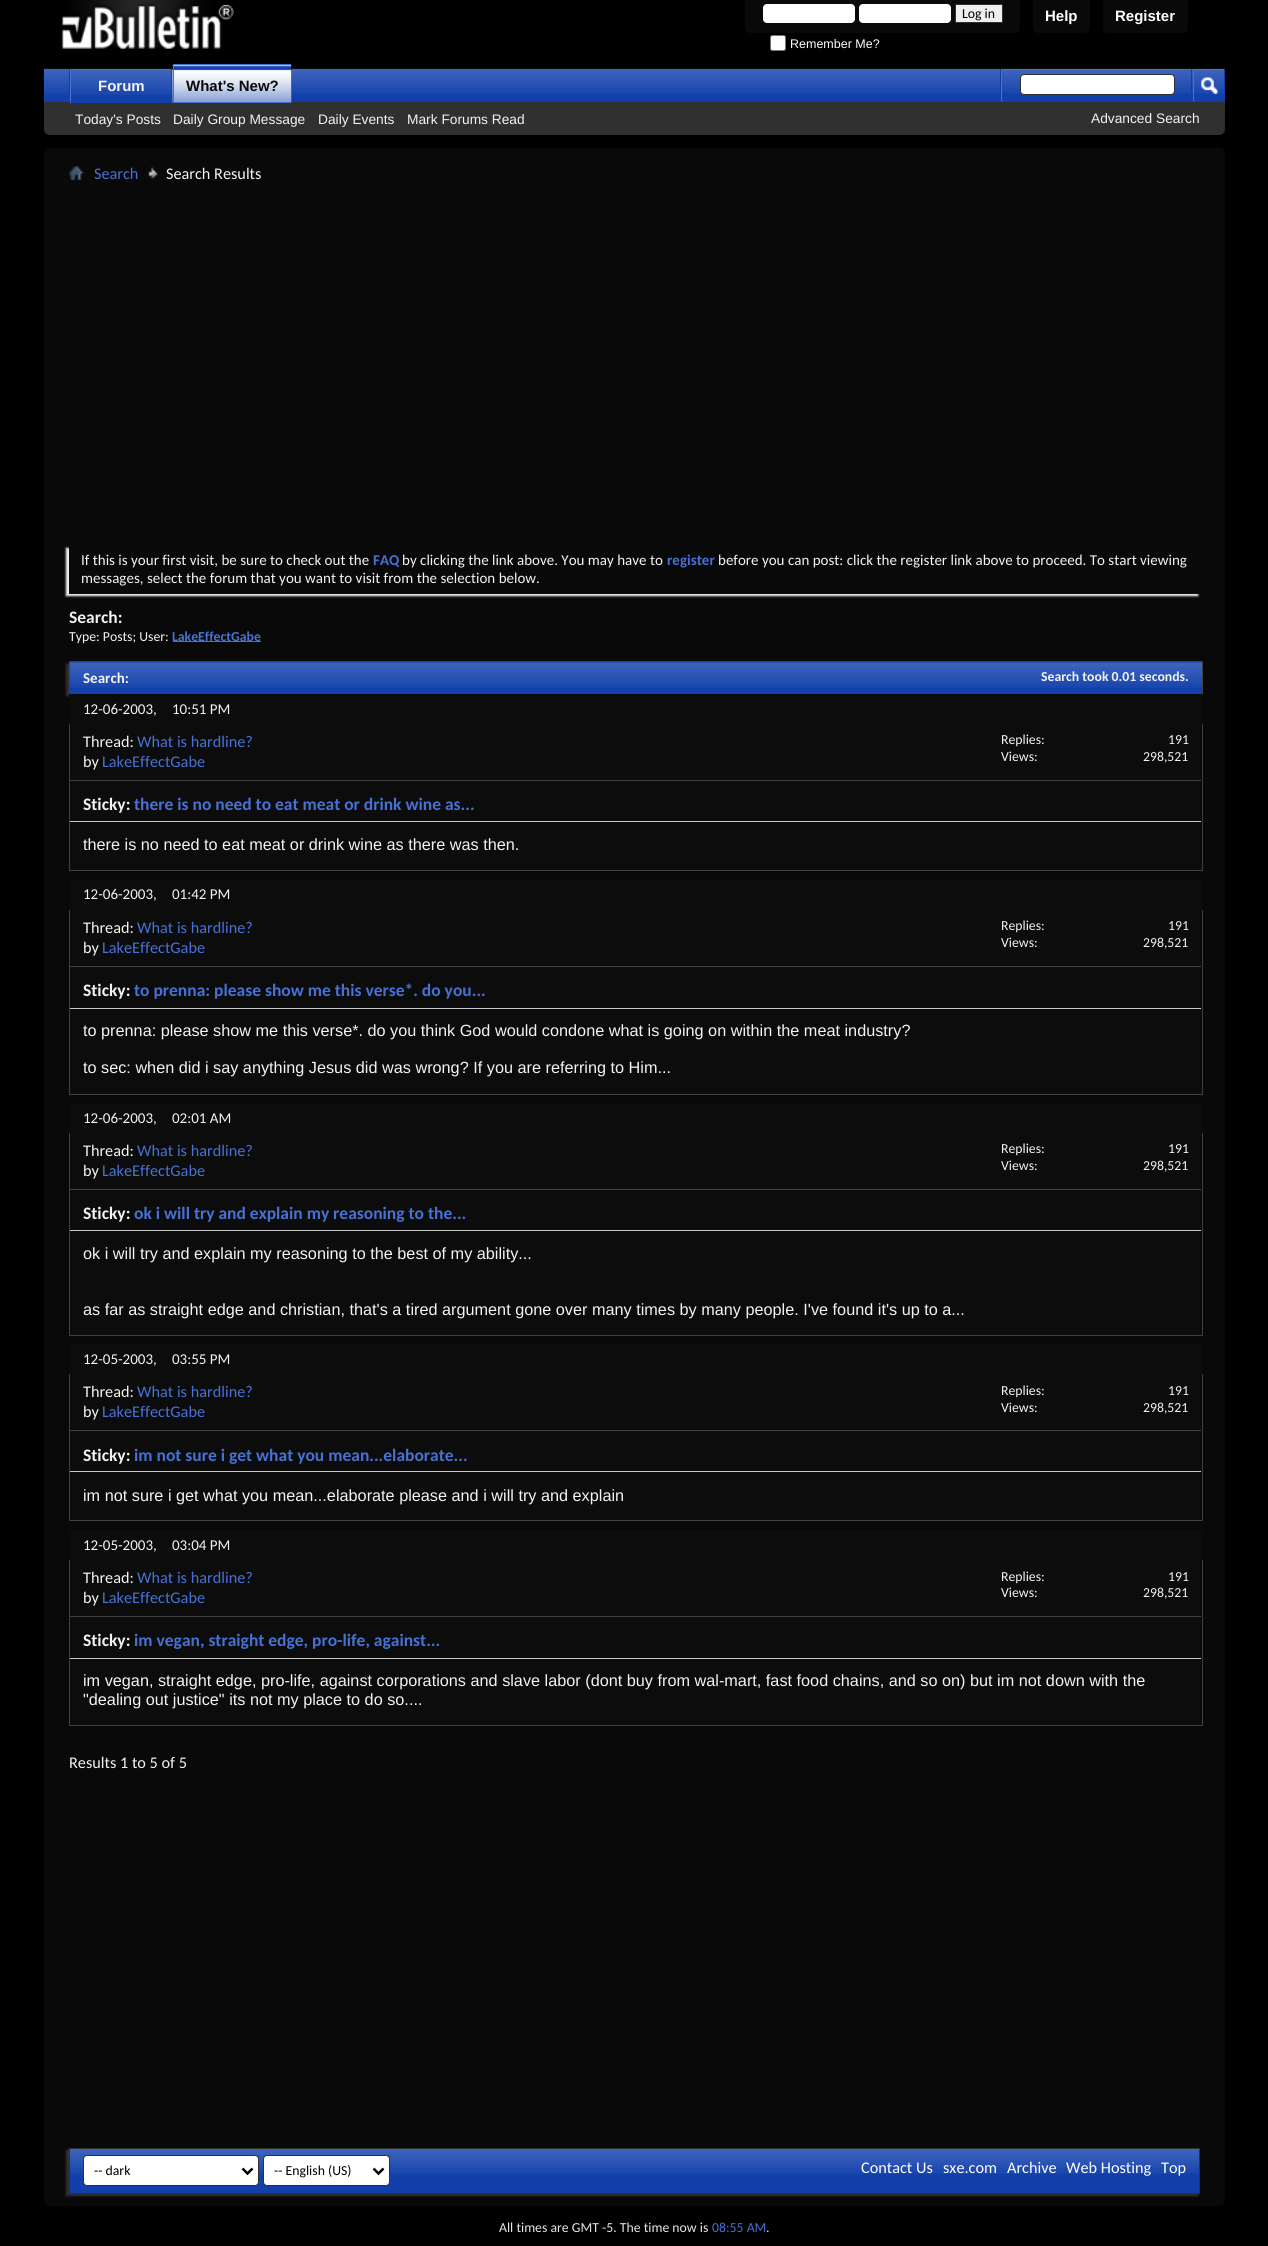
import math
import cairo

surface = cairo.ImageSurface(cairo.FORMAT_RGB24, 1268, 2246)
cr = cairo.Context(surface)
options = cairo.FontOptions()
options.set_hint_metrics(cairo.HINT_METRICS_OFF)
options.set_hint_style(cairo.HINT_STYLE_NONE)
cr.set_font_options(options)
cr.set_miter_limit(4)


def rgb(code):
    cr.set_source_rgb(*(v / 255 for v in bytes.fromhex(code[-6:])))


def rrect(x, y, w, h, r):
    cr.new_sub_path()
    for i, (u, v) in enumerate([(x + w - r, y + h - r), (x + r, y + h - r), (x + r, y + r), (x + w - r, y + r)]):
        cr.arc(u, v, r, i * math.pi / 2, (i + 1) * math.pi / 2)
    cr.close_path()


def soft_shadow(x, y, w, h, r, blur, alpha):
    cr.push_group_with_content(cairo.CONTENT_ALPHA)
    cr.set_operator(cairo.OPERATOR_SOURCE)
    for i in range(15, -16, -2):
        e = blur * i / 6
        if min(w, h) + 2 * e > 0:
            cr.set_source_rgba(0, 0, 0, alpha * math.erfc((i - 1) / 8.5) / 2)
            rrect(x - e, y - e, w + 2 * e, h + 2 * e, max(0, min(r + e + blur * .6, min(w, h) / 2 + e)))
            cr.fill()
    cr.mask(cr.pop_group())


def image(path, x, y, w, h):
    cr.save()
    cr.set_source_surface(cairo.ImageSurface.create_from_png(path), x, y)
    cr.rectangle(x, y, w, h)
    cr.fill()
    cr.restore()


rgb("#000000")
cr.paint()
image("img/1.png", 62, 0, 172, 49)
rgb("#090909")
cr.new_path()
cr.move_to(745, 0)
cr.line_to(1020, 0)
cr.line_to(1020, 27)
cr.curve_to(1020, 30.5, 1017.5, 33, 1014, 33)
cr.line_to(751, 33)
cr.curve_to(747.5, 33, 745, 30.5, 745, 27)
cr.close_path()
cr.fill()
rgb("#ffffff")
rrect(763, 4, 92, 19, 4)
cr.fill()
rrect(859, 4, 92, 19, 4)
cr.fill()
rgb("#efefef")
cr.rectangle(955.5, 4.5, 47, 18)
cr.fill_preserve()
rgb("#303030")
cr.set_line_width(1)
cr.stroke()
rgb("#ffffff")
rrect(770.5, 35.5, 15, 15, 2)
cr.fill_preserve()
rgb("#767676")
cr.stroke()
rgb("#090909")
cr.new_path()
cr.move_to(1033, 0)
cr.line_to(1090, 0)
cr.line_to(1090, 27)
cr.curve_to(1090, 30.5, 1087.5, 33, 1084, 33)
cr.line_to(1039, 33)
cr.curve_to(1035.5, 33, 1033, 30.5, 1033, 27)
cr.close_path()
cr.fill()
cr.new_path()
cr.move_to(1103, 0)
cr.line_to(1188, 0)
cr.line_to(1188, 27)
cr.curve_to(1188, 30.5, 1185.5, 33, 1182, 33)
cr.line_to(1109, 33)
cr.curve_to(1105.5, 33, 1103, 30.5, 1103, 27)
cr.close_path()
cr.fill()
rgb("#303030")
cr.new_path()
cr.move_to(44, 69)
cr.line_to(1225, 69)
cr.line_to(1225, 129)
cr.curve_to(1225, 132.5, 1222.5, 135, 1219, 135)
cr.line_to(50, 135)
cr.curve_to(46.5, 135, 44, 132.5, 44, 129)
cr.close_path()
cr.fill()
rgb("#1240ab")
cr.rectangle(44, 69, 1180, 32)
cr.fill()
image("img/2.png", 43, 68, 1182, 26)
for x, y, w, h, color in [
    (291, 69, 1, 32, "#1240ab"),
    (171, 69, 1, 34, "#1240ab"),
    (69, 69, 1, 34, "#1240ab"),
    (71, 70, 100, 33, "#1240ab"),
    (70, 69, 101, 1, "#4671d5"),
    (70, 69, 1, 34, "#4671d5"),
    (44, 101, 1181, 1, "#1240ab"),
    (174, 65, 117, 38, "#1240ab"),
]:
    rgb(color)
    cr.rectangle(x, y, w, h)
    cr.fill()
image("img/3.png", 172, 65, 120, 38)
rgb("#4671d5")
cr.rectangle(173, 64, 118, 1)
cr.fill()
cr.rectangle(173, 64, 1, 39)
cr.fill()
image("img/4.png", 71, 70, 101, 25)
for x, y, w, h, color in [
    (1000, 69, 1, 32, "#1240ab"),
    (1001, 69, 190, 1, "#4671d5"),
    (1001, 69, 1, 32, "#4671d5"),
]:
    rgb(color)
    cr.rectangle(x, y, w, h)
    cr.fill()
rgb("#ffffff")
rrect(1020.5, 74.5, 154, 20, 3.5)
cr.fill_preserve()
rgb("#303030")
cr.stroke()
for x, y, w, h, color in [
    (1224, 69, 1, 32, "#1240ab"),
    (1191, 69, 1, 32, "#1240ab"),
    (1193, 69, 31, 1, "#4671d5"),
    (1193, 69, 1, 32, "#4671d5"),
]:
    rgb(color)
    cr.rectangle(x, y, w, h)
    cr.fill()
image("img/5.png", 1201, 77, 17, 18)
rgb("#090909")
rrect(44, 148, 1181, 2058, 6)
cr.fill()
image("img/6.png", 68, 165, 16, 15)
image("img/7.png", 148, 167, 10, 12)
rgb("#f3f3f3")
soft_shadow(66, 548, 1132, 48, 0, 1, 1)
rgb("#090909")
cr.rectangle(69, 546, 1131, 48)
cr.fill()
rgb("#4671d5")
cr.rectangle(173, 641, 88, 1)
cr.fill()
rgb("#303030")
soft_shadow(66, 664, 1134, 32, 0, 1, 1)
rgb("#1240ab")
cr.rectangle(70, 662, 1132, 31)
cr.fill()
image("img/8.png", 68, 662, 1134, 26)
cr.rectangle(69.5, 661.5, 1133, 32)
rgb("#404040")
cr.stroke()
cr.rectangle(69.5, 694.5, 1133, 176)
cr.stroke()
for x, y, w, h, color in [
    (69, 694, 1134, 30, "#0c0c0c"),
    (70, 724, 1131, 56, "#0c0c0c"),
    (70, 780, 1131, 1, "#404040"),
    (70, 781, 1131, 89, "#0c0c0c"),
    (70, 821, 1131, 1, "#c8c8c8"),
]:
    rgb(color)
    cr.rectangle(x, y, w, h)
    cr.fill()
cr.rectangle(69.5, 880.5, 1133, 214)
rgb("#404040")
cr.stroke()
for x, y, w, h, color in [
    (69, 880, 1134, 30, "#0c0c0c"),
    (70, 910, 1131, 184, "#0c0c0c"),
    (70, 966, 1131, 1, "#404040"),
    (70, 1008, 1131, 1, "#c8c8c8"),
]:
    rgb(color)
    cr.rectangle(x, y, w, h)
    cr.fill()
cr.rectangle(69.5, 1103.5, 1133, 232)
rgb("#404040")
cr.stroke()
for x, y, w, h, color in [
    (69, 1103, 1134, 30, "#0c0c0c"),
    (70, 1133, 1131, 56, "#0c0c0c"),
    (70, 1189, 1131, 1, "#404040"),
    (70, 1190, 1131, 145, "#0c0c0c"),
    (70, 1230, 1131, 1, "#c8c8c8"),
]:
    rgb(color)
    cr.rectangle(x, y, w, h)
    cr.fill()
cr.rectangle(69.5, 1344.5, 1133, 176)
rgb("#404040")
cr.stroke()
for x, y, w, h, color in [
    (69, 1344, 1134, 30, "#0c0c0c"),
    (70, 1374, 1131, 56, "#0c0c0c"),
    (70, 1430, 1131, 1, "#404040"),
    (70, 1431, 1131, 89, "#0c0c0c"),
    (70, 1471, 1131, 1, "#c8c8c8"),
]:
    rgb(color)
    cr.rectangle(x, y, w, h)
    cr.fill()
cr.rectangle(69.5, 1530.5, 1133, 195)
rgb("#404040")
cr.stroke()
for x, y, w, h, color in [
    (69, 1530, 1134, 30, "#0c0c0c"),
    (70, 1560, 1131, 165, "#0c0c0c"),
    (70, 1616, 1131, 1, "#404040"),
    (70, 1658, 1131, 1, "#c8c8c8"),
]:
    rgb(color)
    cr.rectangle(x, y, w, h)
    cr.fill()
rgb("#303030")
soft_shadow(66, 2150, 1132, 46, 0, 1, 1)
rgb("#1240ab")
cr.rectangle(70, 2149, 1129, 44)
cr.fill()
image("img/9.png", 68, 2149, 1131, 25)
cr.rectangle(69.5, 2148.5, 1130, 45)
rgb("#303030")
cr.stroke()
rgb("#ffffff")
rrect(83.5, 2155.5, 175, 30, 3.5)
cr.fill_preserve()
rgb("#303030")
cr.stroke()
cr.new_path()
cr.move_to(242.5, 2168.5)
cr.line_to(247.5, 2173.5)
cr.line_to(252.5, 2168.5)
rgb("#000000")
cr.set_line_width(2.5)
cr.stroke()
rgb("#ffffff")
rrect(263.5, 2155.5, 126, 30, 3.5)
cr.fill_preserve()
rgb("#303030")
cr.set_line_width(1)
cr.stroke()
cr.new_path()
cr.move_to(373.5, 2168.5)
cr.line_to(378.5, 2173.5)
cr.line_to(383.5, 2168.5)
rgb("#000000")
cr.set_line_width(2.5)
cr.stroke()
cr.select_font_face("Carlito")
cr.set_font_size(13.75)
cr.move_to(962, 18)
cr.show_text("Log in")
cr.select_font_face("Liberation Sans")
cr.set_font_size(12.5)
rgb("#ffffff")
cr.move_to(790, 48)
cr.show_text("Remember Me?")
cr.select_font_face("Liberation Sans", cairo.FONT_SLANT_NORMAL, cairo.FONT_WEIGHT_BOLD)
cr.set_font_size(15)
cr.move_to(1045, 21)
cr.show_text("Help")
cr.move_to(1115, 21)
cr.show_text("Register")
rgb("#090909")
cr.move_to(186, 91)
cr.show_text("What's New?")
cr.select_font_face("Liberation Sans")
cr.set_font_size(13.75)
rgb("#f3f3f3")
for x, y, s in [
    (75, 124, "Today's Posts"),
    (173, 124, "Daily Group Message"),
    (318, 124, "Daily Events"),
    (407, 124, "Mark Forums Read"),
]:
    cr.move_to(x, y)
    cr.show_text(s)
cr.select_font_face("Liberation Sans", cairo.FONT_SLANT_NORMAL, cairo.FONT_WEIGHT_BOLD)
cr.set_font_size(15)
cr.move_to(98, 91)
cr.show_text("Forum")
cr.select_font_face("Liberation Sans")
cr.set_font_size(13.75)
cr.move_to(1091, 123)
cr.show_text("Advanced Search")
cr.select_font_face("Carlito")
cr.set_font_size(16.25)
rgb("#4671d5")
cr.move_to(94, 179)
cr.show_text("Search")
rgb("#f3f3f3")
cr.move_to(166, 179)
cr.show_text("Search Results")
cr.set_font_size(15)
cr.move_to(81, 565)
cr.show_text("If this is your first visit, be sure to check out the")
cr.select_font_face("Carlito", cairo.FONT_SLANT_NORMAL, cairo.FONT_WEIGHT_BOLD)
rgb("#4671d5")
cr.move_to(373, 565)
cr.show_text("FAQ")
cr.select_font_face("Carlito")
rgb("#f3f3f3")
cr.move_to(402, 565)
cr.show_text("by clicking the link above. You may have to")
cr.select_font_face("Carlito", cairo.FONT_SLANT_NORMAL, cairo.FONT_WEIGHT_BOLD)
rgb("#4671d5")
cr.move_to(667, 565)
cr.show_text("register")
cr.select_font_face("Carlito")
rgb("#f3f3f3")
cr.move_to(718, 565)
cr.show_text("before you can post: click the register link above to proceed. To start viewing")
cr.move_to(81, 583)
cr.show_text("messages, select the forum that you want to visit from the selection below.")
cr.select_font_face("Carlito", cairo.FONT_SLANT_NORMAL, cairo.FONT_WEIGHT_BOLD)
cr.set_font_size(17.5)
cr.move_to(69, 623)
cr.show_text("Search:")
cr.select_font_face("Carlito")
cr.set_font_size(13.75)
cr.move_to(69, 641)
cr.show_text("Type: Posts; User:")
cr.select_font_face("Carlito", cairo.FONT_SLANT_NORMAL, cairo.FONT_WEIGHT_BOLD)
rgb("#4671d5")
cr.move_to(172, 641)
cr.show_text("LakeEffectGabe")
cr.set_font_size(15)
rgb("#f3f3f3")
cr.move_to(83, 683)
cr.show_text("Search:")
cr.set_font_size(13.75)
cr.move_to(1041, 681)
cr.show_text("Search took 0.01 seconds.")
cr.select_font_face("Carlito")
cr.set_font_size(15)
cr.move_to(83, 714)
cr.show_text("12-06-2003,")
cr.move_to(172, 714)
cr.show_text("10:51 PM")
cr.set_font_size(16.25)
cr.move_to(83, 747)
cr.show_text("Thread:")
rgb("#4671d5")
cr.move_to(137, 747)
cr.show_text("What is hardline?")
rgb("#f3f3f3")
cr.move_to(83, 767)
cr.show_text("by")
rgb("#4671d5")
cr.move_to(102, 767)
cr.show_text("LakeEffectGabe")
cr.set_font_size(13.75)
rgb("#f3f3f3")
for x, y, s in [
    (1001, 744, "Replies:"),
    (1168, 744, "191"),
    (1001, 761, "Views:"),
    (1143, 761, "298,521"),
]:
    cr.move_to(x, y)
    cr.show_text(s)
cr.select_font_face("Carlito", cairo.FONT_SLANT_NORMAL, cairo.FONT_WEIGHT_BOLD)
cr.set_font_size(17.5)
cr.move_to(83, 810)
cr.show_text("Sticky:")
rgb("#4671d5")
cr.move_to(134, 810)
cr.show_text("there is no need to eat meat or drink wine as...")
cr.select_font_face("Liberation Sans")
cr.set_font_size(16.25)
rgb("#f3f3f3")
cr.move_to(83, 850)
cr.show_text("there is no need to eat meat or drink wine as there was then.")
cr.select_font_face("Carlito")
cr.set_font_size(15)
cr.move_to(83, 899)
cr.show_text("12-06-2003,")
cr.move_to(172, 899)
cr.show_text("01:42 PM")
cr.set_font_size(16.25)
cr.move_to(83, 933)
cr.show_text("Thread:")
rgb("#4671d5")
cr.move_to(137, 933)
cr.show_text("What is hardline?")
rgb("#f3f3f3")
cr.move_to(83, 953)
cr.show_text("by")
rgb("#4671d5")
cr.move_to(102, 953)
cr.show_text("LakeEffectGabe")
cr.set_font_size(13.75)
rgb("#f3f3f3")
for x, y, s in [
    (1001, 930, "Replies:"),
    (1168, 930, "191"),
    (1001, 947, "Views:"),
    (1143, 947, "298,521"),
]:
    cr.move_to(x, y)
    cr.show_text(s)
cr.select_font_face("Carlito", cairo.FONT_SLANT_NORMAL, cairo.FONT_WEIGHT_BOLD)
cr.set_font_size(17.5)
cr.move_to(83, 996)
cr.show_text("Sticky:")
rgb("#4671d5")
cr.move_to(134, 996)
cr.show_text("to prenna: please show me this verse*. do you...")
cr.select_font_face("Liberation Sans")
cr.set_font_size(16.25)
rgb("#f3f3f3")
cr.move_to(83, 1036)
cr.show_text("to prenna: please show me this verse*. do you think God would condone what is going on within the meat industry?")
cr.move_to(83, 1073)
cr.show_text("to sec: when did i say anything Jesus did was wrong? If you are referring to Him...")
cr.select_font_face("Carlito")
cr.set_font_size(15)
cr.move_to(83, 1123)
cr.show_text("12-06-2003,")
cr.move_to(172, 1123)
cr.show_text("02:01 AM")
cr.set_font_size(16.25)
cr.move_to(83, 1156)
cr.show_text("Thread:")
rgb("#4671d5")
cr.move_to(137, 1156)
cr.show_text("What is hardline?")
rgb("#f3f3f3")
cr.move_to(83, 1176)
cr.show_text("by")
rgb("#4671d5")
cr.move_to(102, 1176)
cr.show_text("LakeEffectGabe")
cr.set_font_size(13.75)
rgb("#f3f3f3")
for x, y, s in [
    (1001, 1153, "Replies:"),
    (1168, 1153, "191"),
    (1001, 1170, "Views:"),
    (1143, 1170, "298,521"),
]:
    cr.move_to(x, y)
    cr.show_text(s)
cr.select_font_face("Carlito", cairo.FONT_SLANT_NORMAL, cairo.FONT_WEIGHT_BOLD)
cr.set_font_size(17.5)
cr.move_to(83, 1219)
cr.show_text("Sticky:")
rgb("#4671d5")
cr.move_to(134, 1219)
cr.show_text("ok i will try and explain my reasoning to the...")
cr.select_font_face("Liberation Sans")
cr.set_font_size(16.25)
rgb("#f3f3f3")
cr.move_to(83, 1259)
cr.show_text("ok i will try and explain my reasoning to the best of my ability...")
cr.move_to(83, 1315)
cr.show_text("as far as straight edge and christian, that's a tired argument gone over many times by many people. I've found it's up to a...")
cr.select_font_face("Carlito")
cr.set_font_size(15)
cr.move_to(83, 1364)
cr.show_text("12-05-2003,")
cr.move_to(172, 1364)
cr.show_text("03:55 PM")
cr.set_font_size(16.25)
cr.move_to(83, 1397)
cr.show_text("Thread:")
rgb("#4671d5")
cr.move_to(137, 1397)
cr.show_text("What is hardline?")
rgb("#f3f3f3")
cr.move_to(83, 1417)
cr.show_text("by")
rgb("#4671d5")
cr.move_to(102, 1417)
cr.show_text("LakeEffectGabe")
cr.set_font_size(13.75)
rgb("#f3f3f3")
for x, y, s in [
    (1001, 1395, "Replies:"),
    (1168, 1395, "191"),
    (1001, 1412, "Views:"),
    (1143, 1412, "298,521"),
]:
    cr.move_to(x, y)
    cr.show_text(s)
cr.select_font_face("Carlito", cairo.FONT_SLANT_NORMAL, cairo.FONT_WEIGHT_BOLD)
cr.set_font_size(17.5)
cr.move_to(83, 1461)
cr.show_text("Sticky:")
rgb("#4671d5")
cr.move_to(134, 1461)
cr.show_text("im not sure i get what you mean...elaborate...")
cr.select_font_face("Liberation Sans")
cr.set_font_size(16.25)
rgb("#f3f3f3")
cr.move_to(83, 1501)
cr.show_text("im not sure i get what you mean...elaborate please and i will try and explain")
cr.select_font_face("Carlito")
cr.set_font_size(15)
cr.move_to(83, 1550)
cr.show_text("12-05-2003,")
cr.move_to(172, 1550)
cr.show_text("03:04 PM")
cr.set_font_size(16.25)
cr.move_to(83, 1583)
cr.show_text("Thread:")
rgb("#4671d5")
cr.move_to(137, 1583)
cr.show_text("What is hardline?")
rgb("#f3f3f3")
cr.move_to(83, 1603)
cr.show_text("by")
rgb("#4671d5")
cr.move_to(102, 1603)
cr.show_text("LakeEffectGabe")
cr.set_font_size(13.75)
rgb("#f3f3f3")
for x, y, s in [
    (1001, 1581, "Replies:"),
    (1168, 1581, "191"),
    (1001, 1597, "Views:"),
    (1143, 1597, "298,521"),
]:
    cr.move_to(x, y)
    cr.show_text(s)
cr.select_font_face("Carlito", cairo.FONT_SLANT_NORMAL, cairo.FONT_WEIGHT_BOLD)
cr.set_font_size(17.5)
cr.move_to(83, 1646)
cr.show_text("Sticky:")
rgb("#4671d5")
cr.move_to(134, 1646)
cr.show_text("im vegan, straight edge, pro-life, against...")
cr.select_font_face("Liberation Sans")
cr.set_font_size(16.25)
rgb("#f3f3f3")
cr.move_to(83, 1686)
cr.show_text("im vegan, straight edge, pro-life, against corporations and slave labor (dont buy from wal-mart, fast food chains, and so on) but im not down with the")
cr.move_to(83, 1705)
cr.show_text("\"dealing out justice\" its not my place to do so....")
cr.select_font_face("Carlito")
cr.move_to(69, 1768)
cr.show_text("Results 1 to 5 of 5")
cr.set_font_size(13.75)
rgb("#000000")
cr.move_to(94, 2175)
cr.show_text("-- dark")
cr.move_to(274, 2175)
cr.show_text("-- English (US)")
cr.set_font_size(16.25)
rgb("#ffffff")
for x, y, s in [
    (861, 2173, "Contact Us"),
    (943, 2173, "sxe.com"),
    (1007, 2173, "Archive"),
    (1066, 2173, "Web Hosting"),
    (1161, 2173, "Top"),
]:
    cr.move_to(x, y)
    cr.show_text(s)
cr.set_font_size(13.75)
rgb("#e6e6e6")
cr.move_to(499, 2232)
cr.show_text("All times are GMT -5. The time now is")
rgb("#4671d5")
cr.move_to(712, 2232)
cr.show_text("08:55 AM")
rgb("#e6e6e6")
cr.move_to(766, 2232)
cr.show_text(".")
surface.write_to_png("page.png")
